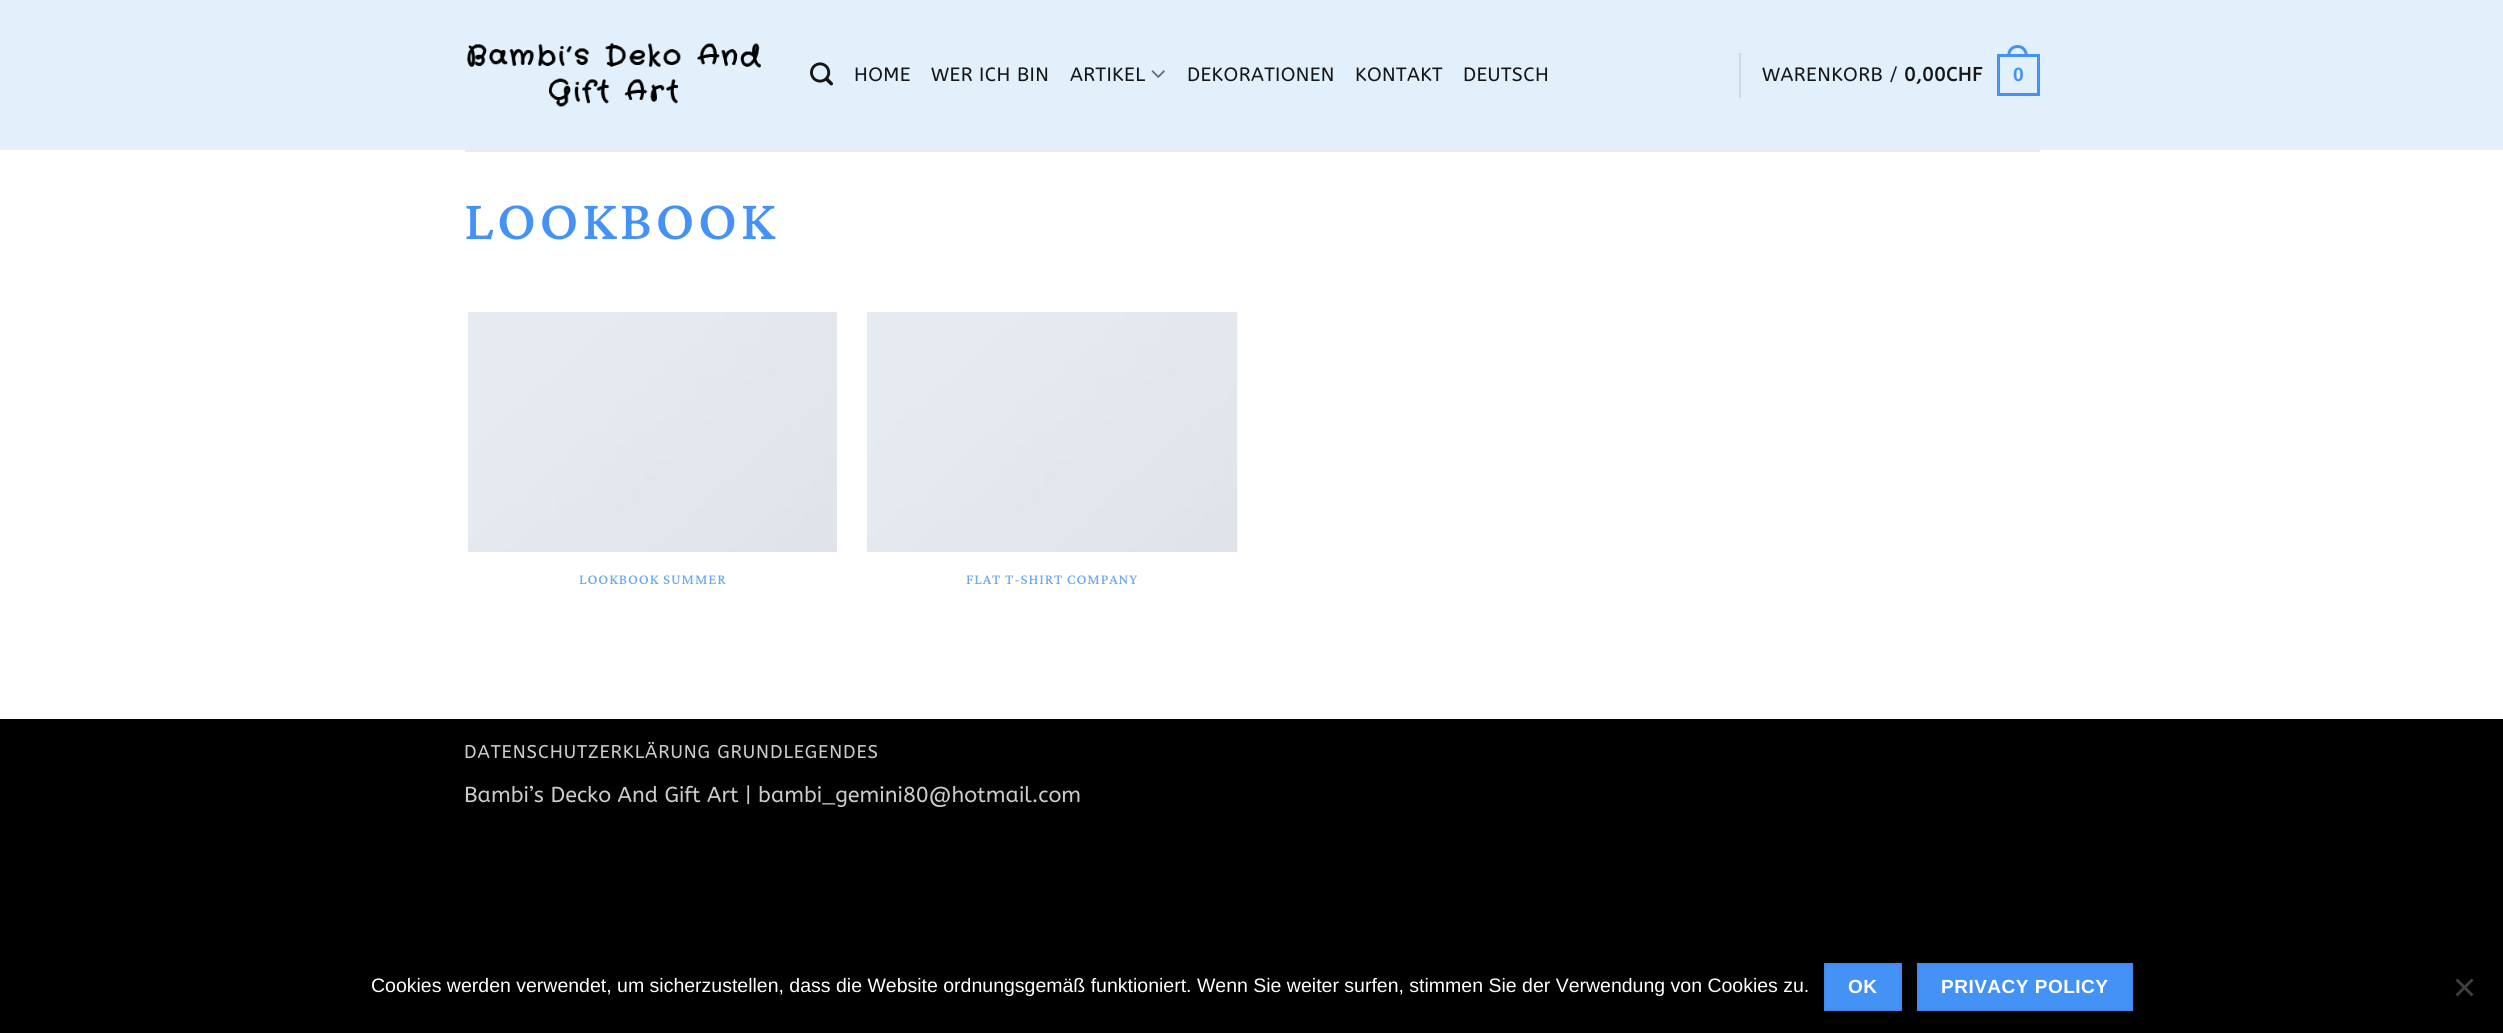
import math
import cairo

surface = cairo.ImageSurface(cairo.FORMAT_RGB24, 2503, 1033)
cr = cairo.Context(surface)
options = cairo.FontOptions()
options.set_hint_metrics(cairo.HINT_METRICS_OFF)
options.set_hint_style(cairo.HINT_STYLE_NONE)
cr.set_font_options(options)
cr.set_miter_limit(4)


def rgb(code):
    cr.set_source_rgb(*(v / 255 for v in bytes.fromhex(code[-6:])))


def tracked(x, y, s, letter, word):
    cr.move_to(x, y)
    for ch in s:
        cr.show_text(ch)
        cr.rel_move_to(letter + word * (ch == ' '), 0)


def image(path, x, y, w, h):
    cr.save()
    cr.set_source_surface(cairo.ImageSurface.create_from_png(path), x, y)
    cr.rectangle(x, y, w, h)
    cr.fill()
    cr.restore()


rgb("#000000")
cr.paint()
rgb("#ffffff")
cr.rectangle(0, 150, 2503, 569)
cr.fill()
rgb("#e1f0fa")
cr.rectangle(0, 0, 2503, 150)
cr.fill()
image("img/1.png", 467, 42, 294, 65)
image("img/2.png", 810, 62, 23, 24)
image("img/3.png", 1151, 70, 14, 8)
rgb("#cbd8e1")
cr.rectangle(1739, 53, 2, 45)
cr.fill()
cr.rectangle(1998.5, 55.5, 40, 39)
rgb("#4592f6")
cr.set_line_width(3)
cr.stroke()
cr.set_fill_rule(cairo.FILL_RULE_EVEN_ODD)
cr.new_path()
cr.move_to(2017.5, 45)
cr.curve_to(2024.5, 45, 2028, 50.5, 2028, 57)
cr.line_to(2007, 57)
cr.curve_to(2007, 50.5, 2010.5, 45, 2017.5, 45)
cr.close_path()
cr.move_to(2017.5, 48)
cr.curve_to(2023, 48, 2025, 52.5, 2025, 57)
cr.line_to(2010, 57)
cr.curve_to(2010, 52.5, 2012, 48, 2017.5, 48)
cr.close_path()
cr.fill()
rgb("#e9e9e9")
cr.rectangle(465, 150, 1575, 2)
cr.fill()
image("img/4.png", 468, 312, 369, 240)
image("img/5.png", 867, 312, 371, 240)
rgb("#4592f6")
cr.rectangle(1825, 964, 76, 46)
cr.fill_preserve()
rgb("#428bea")
cr.set_line_width(2)
cr.stroke()
rgb("#4592f6")
cr.rectangle(1918, 964, 214, 46)
cr.fill_preserve()
rgb("#428bea")
cr.stroke()
rgb("#404040")
cr.set_fill_rule(cairo.FILL_RULE_WINDING)
cr.new_path()
cr.move_to(2471.5, 978.5)
cr.line_to(2473.5, 980.5)
cr.line_to(2457.5, 996.5)
cr.line_to(2455.5, 994.5)
cr.close_path()
cr.fill()
cr.new_path()
cr.move_to(2455.5, 980.5)
cr.line_to(2457.5, 978.5)
cr.line_to(2473.5, 994.5)
cr.line_to(2471.5, 996.5)
cr.close_path()
cr.fill()
cr.select_font_face("ABeeZee")
cr.set_font_size(19.25)
rgb("#161616")
for x, y, s in [
    (854, 81, "HOME"),
    (931, 81, "WER ICH BIN"),
    (1070, 81, "ARTIKEL"),
    (1187, 81, "DEKORATIONEN"),
    (1355, 81, "KONTAKT"),
    (1463, 81, "DEUTSCH"),
    (1762, 81, "WARENKORB /"),
]:
    tracked(x, y, s, 0.4, 0)
cr.select_font_face("ABeeZee", cairo.FONT_SLANT_NORMAL, cairo.FONT_WEIGHT_BOLD)
tracked(1904, 81, "0,00CHF", 0.4, 0)
cr.select_font_face("Liberation Sans", cairo.FONT_SLANT_NORMAL, cairo.FONT_WEIGHT_BOLD)
rgb("#4592f6")
tracked(2013, 81, "0", 0.4, 0)
cr.select_font_face("Lateef")
cr.set_font_size(72)
tracked(464, 239, "LOOKBOOK", 3.5, 0)
cr.set_font_size(18.4)
rgb("#6aa8f8")
tracked(579, 584, "LOOKBOOK SUMMER", 0.9, 0)
tracked(966, 584, "FLAT T-SHIRT COMPANY", 0.9, 0)
cr.select_font_face("ABeeZee")
rgb("#cccccc")
tracked(464, 758, "DATENSCHUTZERKLÄRUNG GRUNDLEGENDES", 0.9, 0)
cr.set_font_size(21.6)
cr.move_to(464, 802)
cr.show_text("Bambi’s Decko And Gift Art | bambi_gemini80@hotmail.com")
cr.select_font_face("Liberation Sans")
cr.set_font_size(19.5)
rgb("#ffffff")
cr.move_to(371, 992)
cr.show_text("Cookies werden verwendet, um sicherzustellen, dass die Website ordnungsgemäß funktioniert. Wenn Sie weiter surfen, stimmen Sie der Verwendung von Cookies zu.")
cr.select_font_face("Liberation Sans", cairo.FONT_SLANT_NORMAL, cairo.FONT_WEIGHT_BOLD)
cr.set_font_size(19)
tracked(1848, 993, "OK", 0.5, 0)
tracked(1941, 993, "PRIVACY POLICY", 0.5, 0)
surface.write_to_png("page.png")
